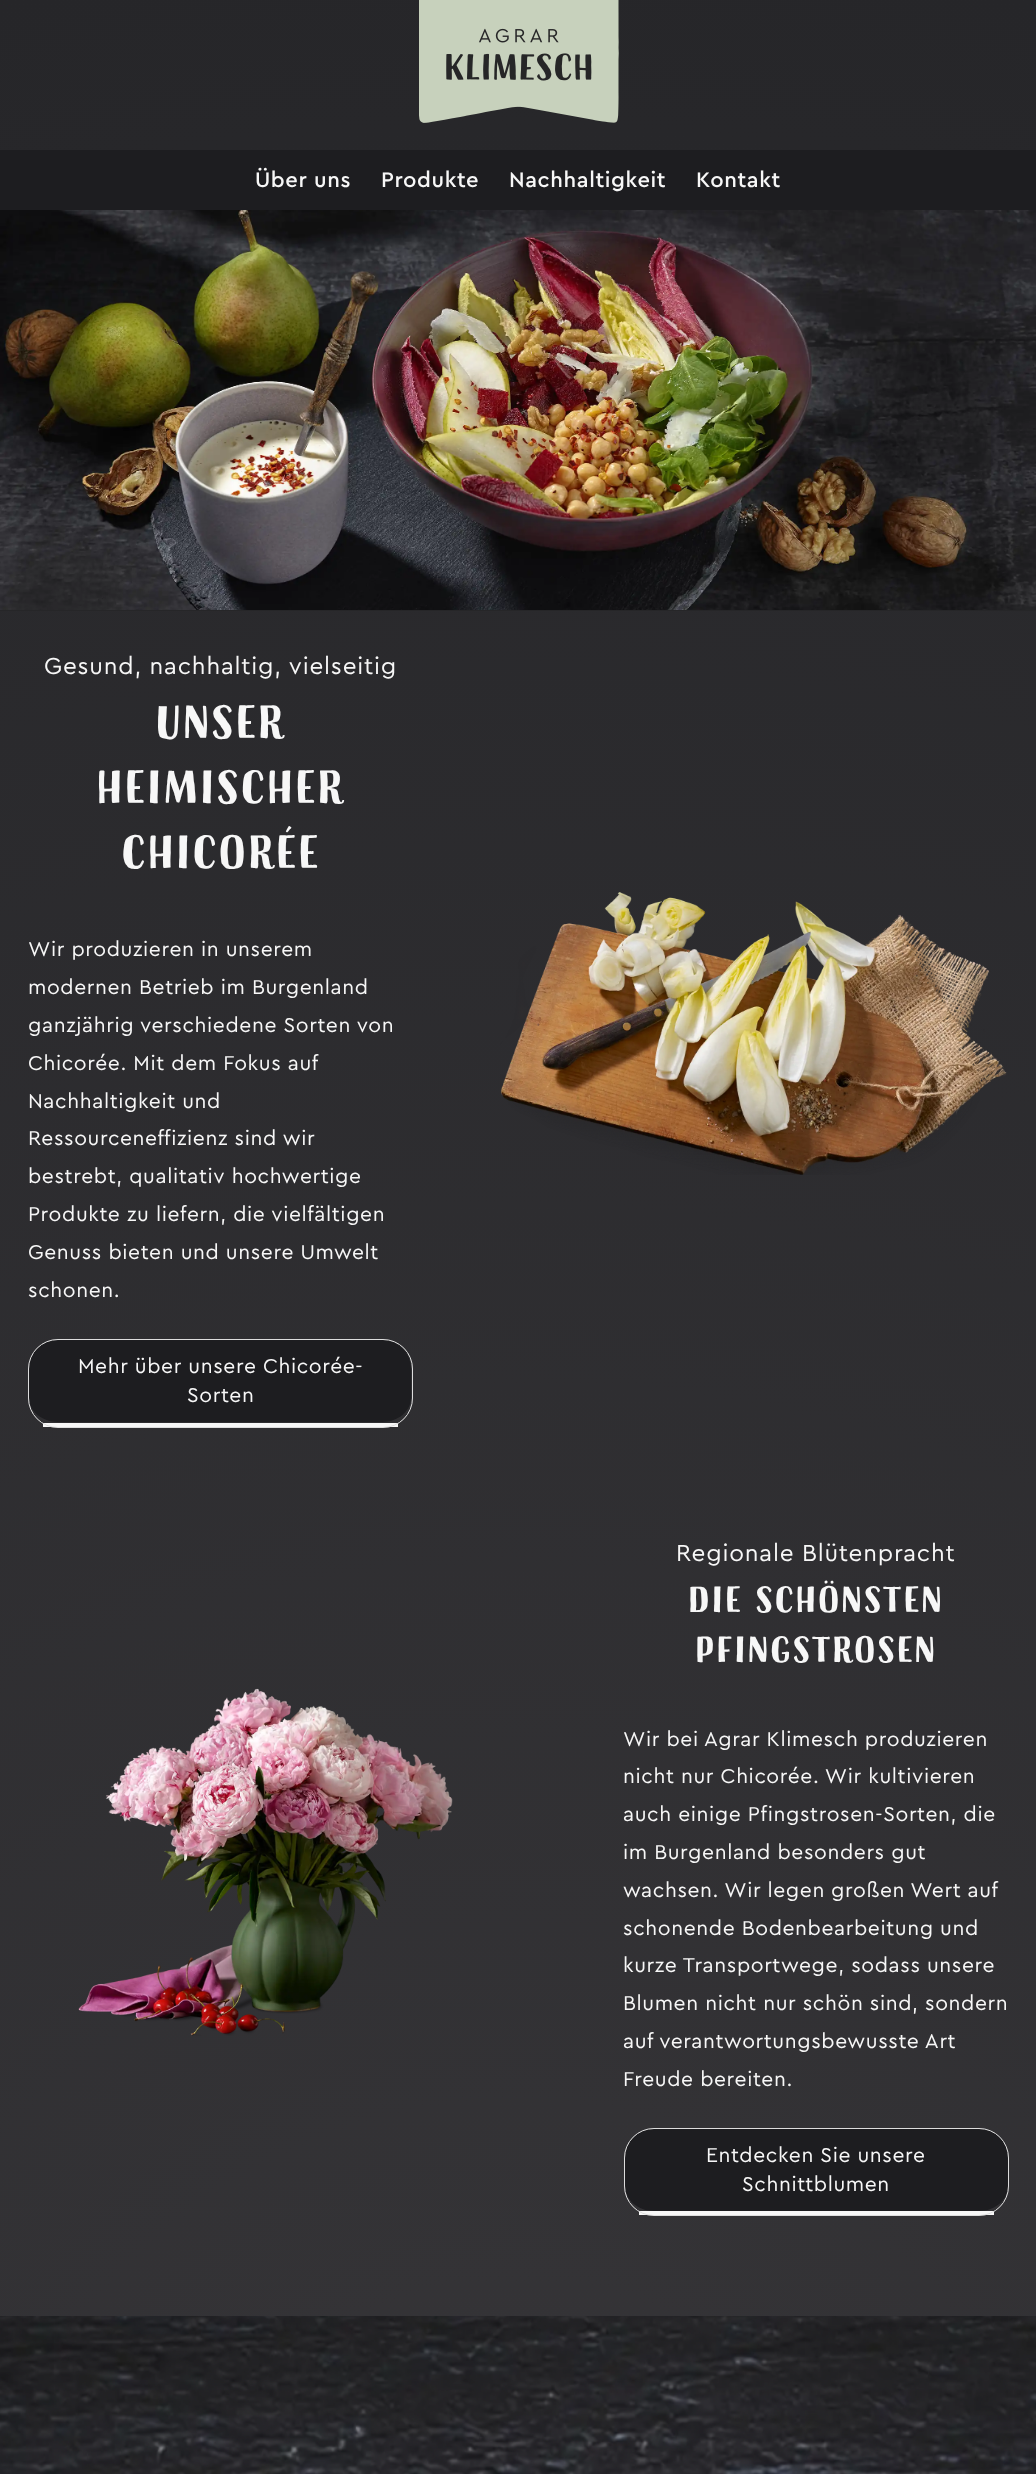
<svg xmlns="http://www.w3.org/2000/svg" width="1036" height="2474">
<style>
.a{font:500 22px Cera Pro;letter-spacing:0.6px;fill:#f7f7f7}
.b{font:24.25px Cera Pro;letter-spacing:0.8px;fill:#f7f7f7}
.c{font:46.25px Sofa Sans;letter-spacing:1.6px;fill:#f7f7f7}
.d{font:21px Cera Pro;letter-spacing:0.6px;fill:#f7f7f7}
.e{font:36.25px Sofa Sans;letter-spacing:1.6px;fill:#f7f7f7}
</style>
<defs>
<radialGradient id="g1" gradientUnits="userSpaceOnUse" cx="518" cy="2641" r="2691"><stop offset="0" stop-color="#363538"/><stop offset="1" stop-color="#262629"/></radialGradient>
</defs>
<rect width="100%" height="100%" fill="#fff"/>
<path fill="url(#g1)" d="M0 0h1036v2316H0z"/>
<image href="1.png" x="419" y="0" width="200" height="123"/>
<path fill="#1d1d20" d="M0 150h1036v60H0z"/>
<path fill="#262628" d="M0 610h1036v1H0z"/>
<image href="2.png" x="0" y="210" width="1036" height="400"/>
<path fill="#1d1d20" d="M58 1340h324c16 0 29 13 29 29v29c0 13-13 24-29 24h-324c-16 0-29-11-29-24v-29c0-16 13-29 29-29z"/>
<rect fill="none" stroke="#f7f7f7" x="28.5" y="1339.5" width="384" height="88" rx="29.5"/>
<path fill="#f7f7f7" d="M43 1423h355v4H43z"/>
<rect fill="none" stroke="#0000001a" x="28.5" y="1339.5" width="384" height="88" rx="29.5"/>
<image href="3.png" x="500" y="892" width="507" height="283"/>
<image href="4.png" x="78" y="1688" width="375" height="348"/>
<path fill="#1d1d20" d="M654 2129h325c16 0 29 13 29 29v28c0 14-13 25-29 25h-325c-16 0-29-11-29-25v-28c0-16 13-29 29-29z"/>
<rect fill="none" stroke="#f7f7f7" x="624.5" y="2128.5" width="384" height="87" rx="29.5"/>
<path fill="#f7f7f7" d="M639 2211h355v4H639z"/>
<rect fill="none" stroke="#0000001a" x="624.5" y="2128.5" width="384" height="87" rx="29.5"/>
<image href="5.png" x="0" y="2316" width="1036" height="158"/>
<text class="a" x="255" y="187">Über uns</text>
<text class="a" x="381" y="187">Produkte</text>
<text class="a" x="509" y="187">Nachhaltigkeit</text>
<text class="a" x="696" y="187">Kontakt</text>
<text class="b" x="44" y="674">Gesund, nachhaltig, vielseitig</text>
<text class="c" x="155" y="738">Unser</text>
<text class="c" x="96" y="803">heimischer</text>
<text class="c" x="121" y="868">Chicorée</text>
<text class="d" x="28" y="956">Wir produzieren in unserem</text>
<text class="d" x="28" y="994">modernen Betrieb im Burgenland</text>
<text class="d" x="28" y="1032">ganzjährig verschiedene Sorten von</text>
<text class="d" x="28" y="1070">Chicorée. Mit dem Fokus auf</text>
<text class="d" x="28" y="1108">Nachhaltigkeit und</text>
<text class="d" x="28" y="1145">Ressourceneffizienz sind wir</text>
<text class="d" x="28" y="1183">bestrebt, qualitativ hochwertige</text>
<text class="d" x="28" y="1221">Produkte zu liefern, die vielfältigen</text>
<text class="d" x="28" y="1259">Genuss bieten und unsere Umwelt</text>
<text class="d" x="28" y="1297">schonen.</text>
<text class="d" x="78" y="1373">Mehr über unsere Chicorée-</text>
<text class="d" x="187" y="1402">Sorten</text>
<text class="b" x="676" y="1561">Regionale Blütenpracht</text>
<text class="e" x="688" y="1612">Die schönsten</text>
<text class="e" x="695" y="1662">Pfingstrosen</text>
<text class="d" x="623" y="1746">Wir bei Agrar Klimesch produzieren</text>
<text class="d" x="623" y="1783">nicht nur Chicorée. Wir kultivieren</text>
<text class="d" x="623" y="1821">auch einige Pfingstrosen-Sorten, die</text>
<text class="d" x="623" y="1859">im Burgenland besonders gut</text>
<text class="d" x="623" y="1897" word-spacing="-0.25">wachsen. Wir legen großen Wert auf</text>
<text class="d" x="623" y="1935">schonende Bodenbearbeitung und</text>
<text class="d" x="623" y="1972">kurze Transportwege, sodass unsere</text>
<text class="d" x="623" y="2010">Blumen nicht nur schön sind, sondern</text>
<text class="d" x="623" y="2048">auf verantwortungsbewusste Art</text>
<text class="d" x="623" y="2086">Freude bereiten.</text>
<text class="d" x="706" y="2162">Entdecken Sie unsere</text>
<text class="d" x="742" y="2191">Schnittblumen</text>
</svg>
